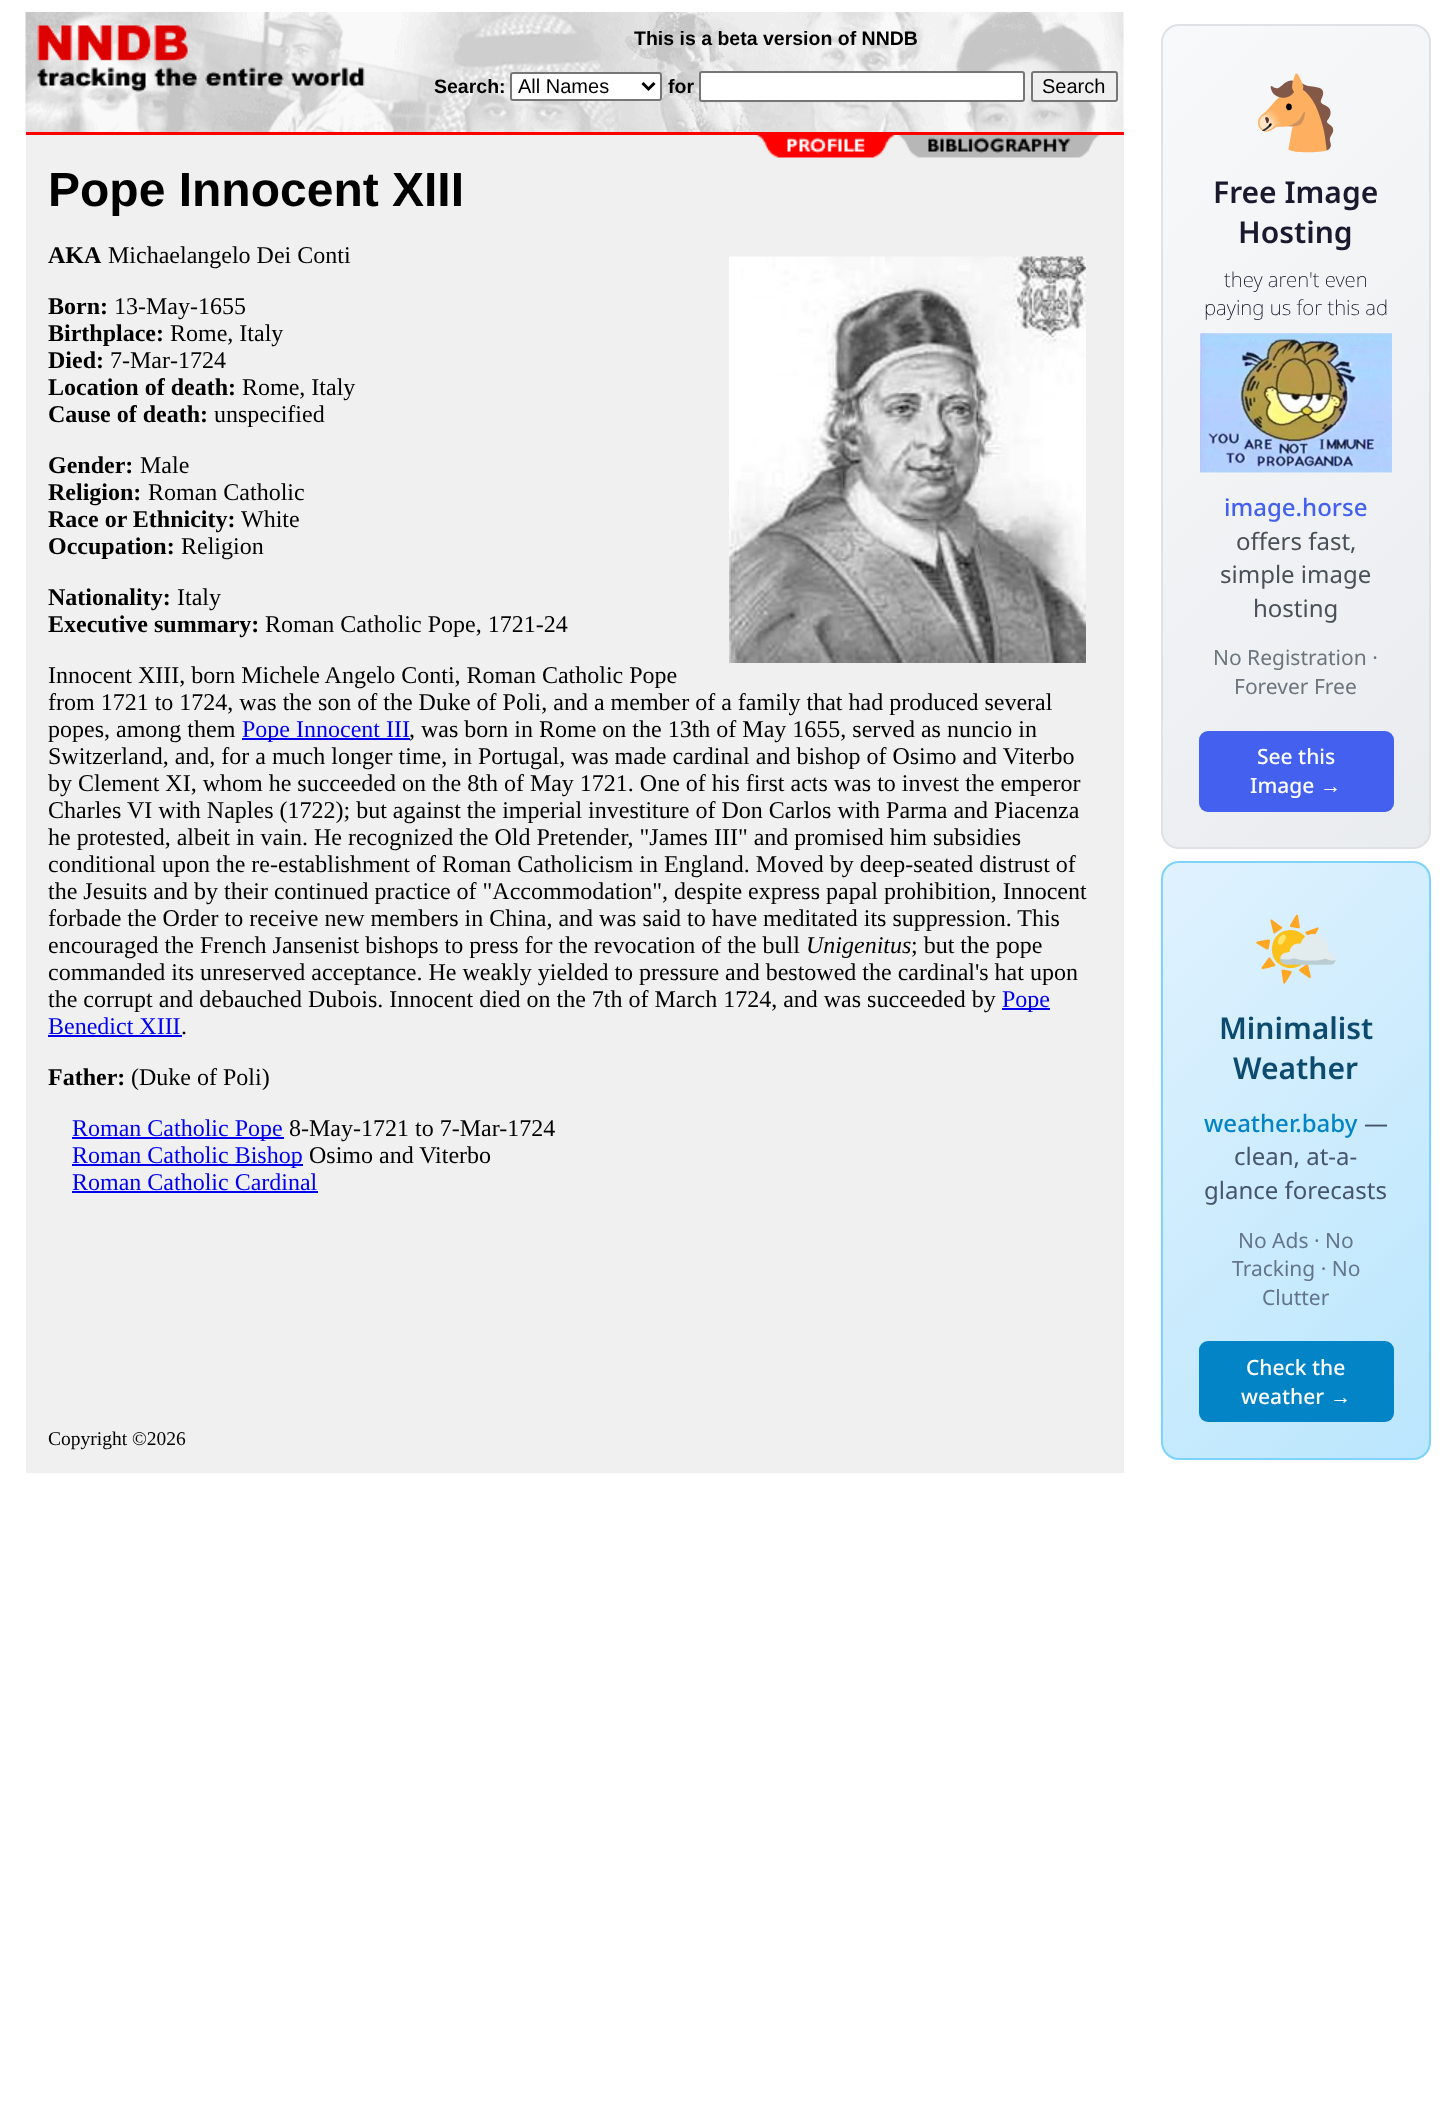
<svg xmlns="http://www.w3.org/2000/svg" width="1456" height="2126">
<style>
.a{font:bold 19.5px Liberation Sans;fill:#000}
.b{font:20px Liberation Sans;fill:#000}
.c{font:bold 48px Liberation Sans;fill:#000}
.d{font:bold 24px Liberation Serif;fill:#000}
.e{font:24px Liberation Serif;fill:#000}
.f{font:24px Liberation Serif;fill:#00e}
.g{font:italic 24px Liberation Serif;fill:#000}
.h{font:19.5px Liberation Serif;fill:#000}
.i{font:72px Noto Color Emoji;fill:#00e}
.j{font:600 30px Noto Sans;fill:#1a1a2e}
.k{font:200 20.5px Noto Sans;fill:#0a0a1e}
.l{font:500 24px Noto Sans;fill:#4361ee}
.m{font:24px Noto Sans;fill:#495057}
.n{font:21px Noto Sans;fill:#6c757d}
.o{font:500 21px Noto Sans;fill:#fff}
.p{font:21px Liberation Sans;fill:#fff}
.q{font:600 30px Noto Sans;fill:#0c4a6e}
.r{font:500 24px Noto Sans;fill:#0284c7}
.s{font:24px Noto Sans;fill:#475569}
.t{font:21px Noto Sans;fill:#64748b}
</style>
<defs>
<clipPath id="clip1"><rect x="1161" y="24" width="270" height="825" rx="18"/></clipPath>
<linearGradient id="g1" gradientUnits="userSpaceOnUse" x1="1024" y1="164" x2="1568" y2="709"><stop offset="0" stop-color="#f8f9fa"/><stop offset="1" stop-color="#e9ecef"/></linearGradient>
<clipPath id="clip2"><rect x="1161" y="861" width="270" height="599" rx="18"/></clipPath>
<linearGradient id="g2" gradientUnits="userSpaceOnUse" x1="1080" y1="945" x2="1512" y2="1376"><stop offset="0" stop-color="#e0f2fe"/><stop offset="1" stop-color="#bae6fd"/></linearGradient>
</defs>
<rect width="100%" height="100%" fill="#fff"/>
<image href="1.png" x="25" y="12" width="1099" height="120"/>
<image href="2.png" x="37" y="25" width="328" height="67"/>
<rect fill="#fff" stroke="#767676" stroke-width="2" x="511" y="73" width="150" height="27" rx="2"/>
<path fill="none" stroke="#000" stroke-width="3" d="M642.5 83l6 6l6-6"/>
<rect fill="#fff" stroke="#767676" stroke-width="2" x="700" y="72" width="324" height="29" rx="2"/>
<rect fill="#efefef" stroke="#767676" stroke-width="2" x="1032" y="72" width="85" height="29" rx="2"/>
<path fill="#f00" d="M26 132h1098v3H26z"/>
<path fill="#f0f0f0" d="M26 135h1098v1338H26z"/>
<image href="3.png" x="757" y="135" width="343" height="23"/>
<image href="4.png" x="729" y="256" width="357" height="407"/>
<path fill="#00e" d="M242 738h168v2H242z"/>
<path fill="#00e" d="M1002 1008h48v2H1002z"/>
<path fill="#00e" d="M48 1035h134v2H48z"/>
<path fill="#00e" d="M72 1137h212v2H72z"/>
<path fill="#00e" d="M72 1164h231v2H72z"/>
<path fill="#00e" d="M72 1191h246v2H72z"/>
<g clip-path="url(#clip1)">
<path fill="url(#g1)" d="M1163 26h267v822H1163z"/>
</g>
<rect fill="none" stroke="#dee2e6" stroke-width="2" x="1162" y="25" width="268" height="823" rx="17"/>
<image href="5.png" x="1200" y="333" width="192" height="140"/>
<rect fill="#4361ee" x="1199" y="731" width="195" height="81" rx="9"/>
<g clip-path="url(#clip2)">
<path fill="url(#g2)" d="M1163 863h267v595H1163z"/>
</g>
<rect fill="none" stroke="#7dd3fc" stroke-width="2" x="1162" y="862" width="268" height="597" rx="17"/>
<rect fill="#0284c7" x="1199" y="1341" width="195" height="81" rx="9"/>
<text class="a" x="634" y="45">This is a beta version of NNDB</text>
<text class="a" x="434" y="93">Search:</text>
<text class="b" x="518" y="93">All Names</text>
<text class="a" x="668" y="93">for</text>
<text class="b" x="1042" y="93">Search</text>
<text class="c" x="48" y="206">Pope Innocent XIII</text>
<text class="d" x="48" y="263">AKA</text>
<text class="e" x="108" y="263">Michaelangelo Dei Conti</text>
<text class="d" x="48" y="314">Born:</text>
<text class="e" x="114" y="314">13-May-1655</text>
<text class="d" x="48" y="341">Birthplace:</text>
<text class="e" x="170" y="341">Rome, Italy</text>
<text class="d" x="48" y="368">Died:</text>
<text class="e" x="110" y="368">7-Mar</text>
<text class="e" x="170" y="368">-1724</text>
<text class="d" x="48" y="395">Location of death:</text>
<text class="e" x="242" y="395">Rome, Italy</text>
<text class="d" x="48" y="422">Cause of death:</text>
<text class="e" x="214" y="422">unspecified</text>
<text class="d" x="48" y="473">Gender:</text>
<text class="e" x="140" y="473">Male</text>
<text class="d" x="48" y="500">Religion:</text>
<text class="e" x="148" y="500">Roman Catholic</text>
<text class="d" x="48" y="527">Race or Ethnicity:</text>
<text class="e" x="241" y="527">White</text>
<text class="d" x="48" y="554">Occupation:</text>
<text class="e" x="181" y="554">Religion</text>
<text class="d" x="48" y="605">Nationality:</text>
<text class="e" x="177" y="605">Italy</text>
<text class="d" x="48" y="632">Executive summary:</text>
<text class="e" x="265" y="632">Roman Catholic Pope, 1721-24</text>
<text class="e" x="48" y="683">Innocent XIII, born Michele Angelo Conti, Roman Catholic Pope</text>
<text class="e" x="48" y="710">from 1721 to 1724, was the son of the Duke of Poli, and a member of a family that had produced several</text>
<text class="e" x="48" y="737">popes, among them</text>
<text class="f" x="242" y="737">Pope Innocent III</text>
<text class="e" x="409" y="737">, was born in Rome on the 13th of May 1655, served as nuncio in</text>
<text class="e" x="48" y="764">Switzerland, and, for a much longer time, in Portugal, was made cardinal and bishop of Osimo and Viterbo</text>
<text class="e" x="48" y="791">by Clement XI, whom he succeeded on the 8th of May 1721. One of his first acts was to invest the emperor</text>
<text class="e" x="48" y="818">Charles VI with Naples (1722); but against the imperial investiture of Don Carlos with Parma and Piacenza</text>
<text class="e" x="48" y="845">he protested, albeit in vain. He recognized the Old Pretender, "James III" and promised him subsidies</text>
<text class="e" x="48" y="872">conditional upon the re-establishment of Roman Catholicism in England. Moved by deep-seated distrust of</text>
<text class="e" x="48" y="899">the Jesuits and by their continued practice of "Accommodation", despite express papal prohibition, Innocent</text>
<text class="e" x="48" y="926">forbade the Order to receive new members in China, and was said to have meditated its suppression. This</text>
<text class="e" x="48" y="953">encouraged the French Jansenist bishops to press for the revocation of the bull</text>
<text class="g" x="806" y="953">Unigenitus</text>
<text class="e" x="911" y="953">; but the pope</text>
<text class="e" x="48" y="980">commanded its unreserved acceptance. He weakly yielded to pressure and bestowed the cardinal's hat upon</text>
<text class="e" x="48" y="1007">the corrupt and debauched Dubois. Innocent died on the 7th of March 1724, and was succeeded by</text>
<text class="f" x="1002" y="1007">Pope</text>
<text class="f" x="48" y="1034">Benedict XIII</text>
<text class="e" x="181" y="1034">.</text>
<text class="d" x="48" y="1085">Father:</text>
<text class="e" x="131" y="1085">(Duke of Poli)</text>
<text class="f" x="72" y="1136">Roman Catholic Pope</text>
<text class="e" x="289" y="1136">8-May-1721 to 7-Mar-1724</text>
<text class="f" x="72" y="1163">Roman Catholic Bishop</text>
<text class="e" x="309" y="1163">Osimo and Viterbo</text>
<text class="f" x="72" y="1190">Roman Catholic Cardinal</text>
<text class="h" x="48" y="1445">Copyright ©2026</text>
<text class="i" x="1251" y="138">🐴</text>
<text class="j" x="1213" y="203">Free Image</text>
<text class="j" x="1238" y="243">Hosting</text>
<text class="k" x="1224" y="287">they aren't even</text>
<text class="k" x="1204" y="315">paying us for this ad</text>
<text class="l" x="1224" y="516">image.horse</text>
<text class="m" x="1236" y="550">offers fast,</text>
<text class="m" x="1220" y="583">simple image</text>
<text class="m" x="1253" y="617">hosting</text>
<text class="n" x="1213" y="665">No Registration ·</text>
<text class="n" x="1234" y="694">Forever Free</text>
<text class="o" x="1257" y="764">See this</text>
<text class="o" x="1250" y="793">Image</text>
<text class="p" x="1320" y="793">→</text>
<text class="i" x="1251" y="974">🌤️</text>
<text class="q" x="1219" y="1039">Minimalist</text>
<text class="q" x="1233" y="1079">Weather</text>
<text class="r" x="1204" y="1132">weather.baby</text>
<text class="s" x="1364" y="1132">—</text>
<text class="s" x="1234" y="1165">clean, at-a-</text>
<text class="s" x="1204" y="1199">glance forecasts</text>
<text class="t" x="1238" y="1248">No Ads · No</text>
<text class="t" x="1232" y="1276">Tracking · No</text>
<text class="t" x="1262" y="1305">Clutter</text>
<text class="o" x="1246" y="1375">Check the</text>
<text class="o" x="1241" y="1404">weather</text>
<text class="p" x="1330" y="1404">→</text>
</svg>
